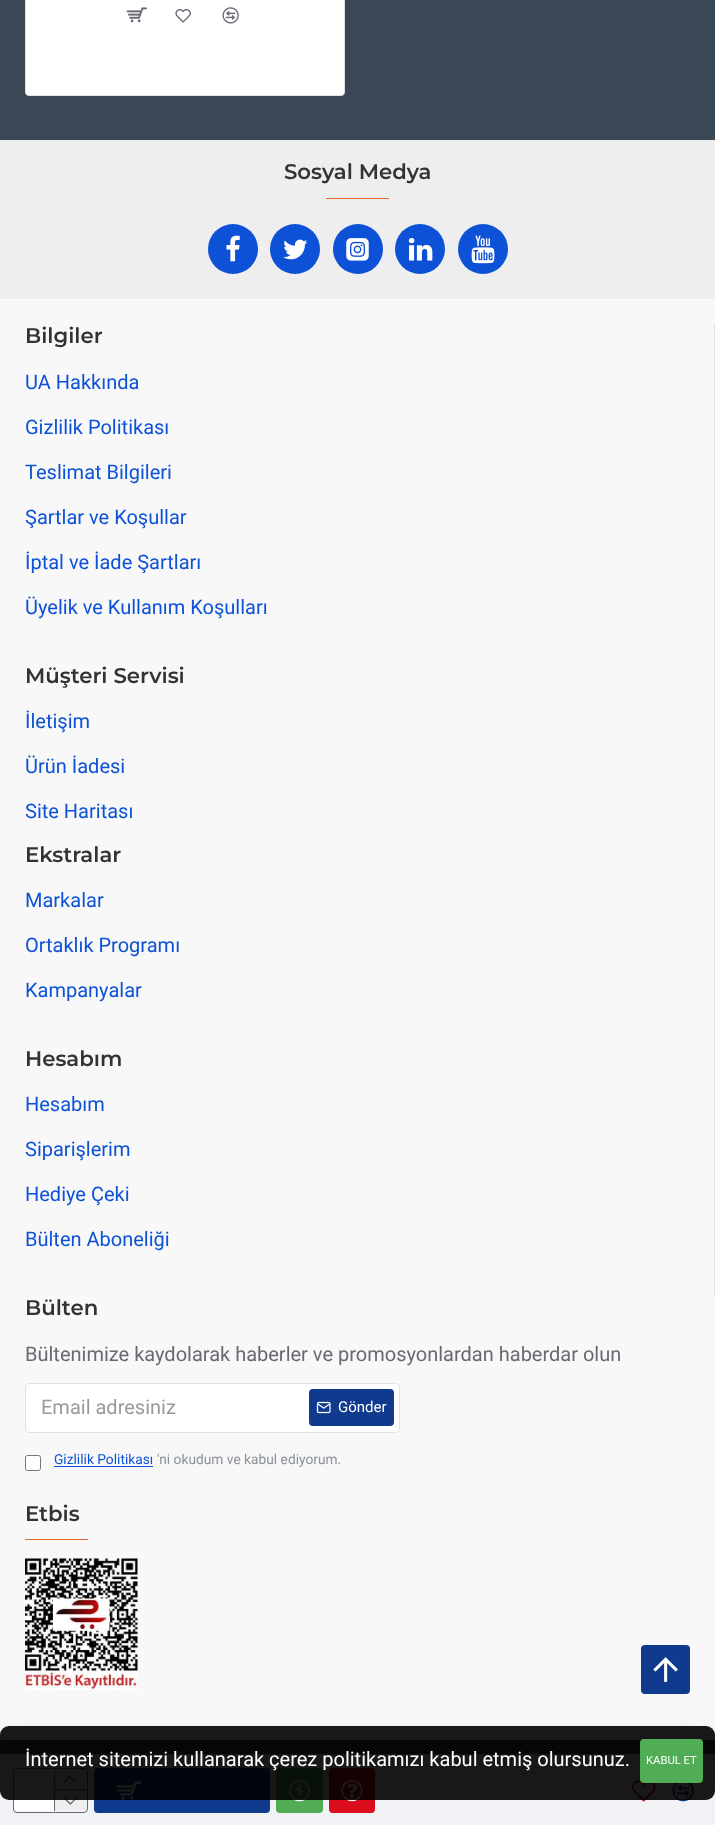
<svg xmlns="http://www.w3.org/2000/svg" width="715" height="1825">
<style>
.a{font:600 21.25px Montserrat;fill:#333}
.b{font:20px Roboto;fill:#0d52d6}
.c{font:20px Roboto;fill:#696973}
.d{font:20px Roboto;fill:#999}
.e{font:15px Roboto;fill:#fff}
.f{font:13.75px Roboto;fill:#0d52d6}
.g{font:13.75px Roboto;fill:#8b9198}
.h{font:20px Roboto;fill:#fff}
.i{font:11.25px Roboto;fill:#fff}
</style>
<rect width="100%" height="100%" fill="#f8f8f8"/>
<path fill="#3a4754" d="M0 0h715v140H0z"/>
<rect fill="#fff" stroke="#e2e2e2" x="25.5" y="-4.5" width="319" height="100" rx="3.5"/>
<image href="1.png" x="126" y="7" width="21" height="16"/>
<image href="2.png" x="175" y="9" width="16" height="14"/>
<image href="3.png" x="222" y="7" width="17" height="17"/>
<path fill="#eee" d="M0 140h715v159H0z"/>
<path fill="#e96631" d="M326 198h63v1H326z"/>
<circle fill="#0d52d6" cx="233" cy="249" r="25"/>
<image href="4.png" x="226" y="235" width="14" height="27"/>
<circle fill="#0d52d6" cx="295" cy="249" r="25"/>
<image href="5.png" x="283" y="239" width="25" height="21"/>
<circle fill="#0d52d6" cx="358" cy="249" r="25"/>
<image href="6.png" x="346" y="238" width="23" height="23"/>
<circle fill="#0d52d6" cx="420" cy="249" r="25"/>
<image href="7.png" x="408" y="238" width="25" height="23"/>
<circle fill="#0d52d6" cx="483" cy="249" r="25"/>
<image href="8.png" x="471" y="235" width="24" height="29"/>
<path fill="#e2e2e2" d="M714 324h1v971H714z"/>
<rect fill="#fff" stroke="#e2e2e2" x="25.5" y="1383.5" width="374" height="49" rx="3.5"/>
<rect fill="#0f3a8d" x="309" y="1389" width="85" height="37" rx="4"/>
<image href="9.png" x="316" y="1401" width="15" height="13"/>
<rect fill="#fff" stroke="#767676" x="25.5" y="1455.5" width="15" height="15" rx="2"/>
<path fill="#0d52d6" d="M54 1466h99v1H54z"/>
<path fill="#e96631" d="M25 1539h63v1H25z"/>
<image href="10.png" x="25" y="1558" width="113" height="132"/>
<path fill="#3a4754" d="M0 1740h715v14H0z"/>
<path fill="#00000026" filter="blur(19px)" d="M6 1748h703v58H6z"/>
<path fill="#f0f2f5" d="M0 1755h715v70H0z"/>
<path fill="#e2e2e2" d="M0 1754h715v1H0z"/>
<rect fill="none" stroke="#696973" x="13.5" y="1768.5" width="74" height="44" rx="3.5"/>
<rect fill="#fff" x="14" y="1769" width="72" height="42" rx="4"/>
<path fill="#696973" d="M54 1769h1v42H54z"/>
<path fill="#eee" d="M55 1769h31v20H55z"/>
<path fill="#696973" d="M55 1789h31v1H55z"/>
<image href="11.png" x="63" y="1776" width="13" height="7"/>
<path fill="#eee" d="M55 1790h31v21H55z"/>
<image href="12.png" x="64" y="1797" width="13" height="8"/>
<rect fill="#0f3a8d" x="94" y="1768" width="176" height="45" rx="4"/>
<image href="13.png" x="116" y="1781" width="26" height="19"/>
<rect fill="#50ad55" x="276" y="1768" width="47" height="45" rx="4"/>
<image href="14.png" x="288" y="1780" width="22" height="22"/>
<rect fill="#dd0e1c" x="329" y="1768" width="46" height="45" rx="4"/>
<image href="15.png" x="341" y="1779" width="22" height="23"/>
<image href="16.png" x="631" y="1780" width="25" height="22"/>
<image href="17.png" x="672" y="1783" width="22" height="19"/>
<rect fill="#0f3a8d" x="641" y="1645" width="49" height="49" rx="4"/>
<image href="18.png" x="653" y="1657" width="25" height="25"/>
<rect fill="#000000e6" y="1726" width="715" height="74" rx="9"/>
<rect fill="#50ad55" x="640" y="1739" width="63" height="44" rx="4"/>
<text class="a" x="284" y="179">Sosyal Medya</text>
<text class="a" x="25" y="343">Bilgiler</text>
<text class="b" x="25" y="389">UA Hakkında</text>
<text class="b" x="25" y="434">Gizlilik Politikası</text>
<text class="b" x="25" y="479">Teslimat Bilgileri</text>
<text class="b" x="25" y="524">Şartlar ve Koşullar</text>
<text class="b" x="25" y="569">İptal ve İade Şartları</text>
<text class="b" x="25" y="614">Üyelik ve Kullanım Koşulları</text>
<text class="a" x="25" y="683">Müşteri Servisi</text>
<text class="b" x="25" y="728">İletişim</text>
<text class="b" x="25" y="773">Ürün İadesi</text>
<text class="b" x="25" y="818">Site Haritası</text>
<text class="a" x="25" y="862">Ekstralar</text>
<text class="b" x="25" y="907">Markalar</text>
<text class="b" x="25" y="952">Ortaklık Programı</text>
<text class="b" x="25" y="997">Kampanyalar</text>
<text class="a" x="25" y="1066">Hesabım</text>
<text class="b" x="25" y="1111">Hesabım</text>
<text class="b" x="25" y="1156">Siparişlerim</text>
<text class="b" x="25" y="1201">Hediye Çeki</text>
<text class="b" x="25" y="1246">Bülten Aboneliği</text>
<text class="a" x="25" y="1315">Bülten</text>
<text class="c" x="25" y="1361">Bültenimize kaydolarak haberler ve promosyonlardan haberdar olun</text>
<text class="d" x="41" y="1414">Email adresiniz</text>
<text class="e" x="338" y="1412">Gönder</text>
<text class="f" x="54" y="1464">Gizlilik Politikası</text>
<text class="g" x="157" y="1464">'ni okudum ve kabul ediyorum.</text>
<text class="a" x="25" y="1521">Etbis</text>
<text class="h" x="25" y="1766">İnternet sitemizi kullanarak çerez politikamızı kabul etmiş olursunuz.</text>
<text class="i" x="646" y="1764">KABUL ET</text>
</svg>
